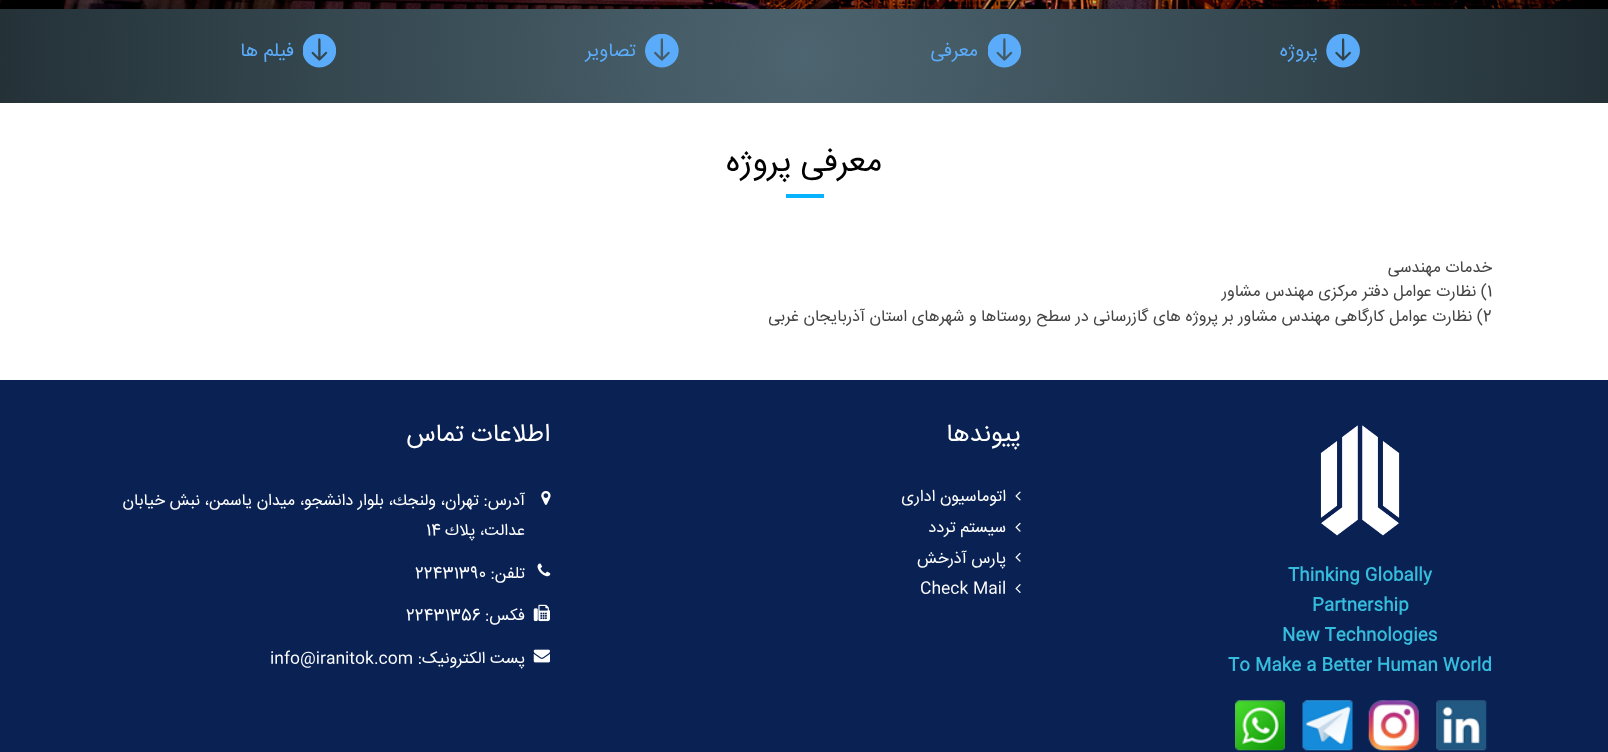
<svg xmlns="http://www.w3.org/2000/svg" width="1608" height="752">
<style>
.a{font:19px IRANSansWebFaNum;direction:rtl;fill:#5aacfa}
.b{font:32.5px IRANSansWebFaNum;direction:rtl;fill:#000}
.c{font:16.25px IRANSansWebFaNum;direction:rtl;fill:#444}
.d{font:16.25px IRANSansWebFaNum;fill:#444}
.e{font:25px IRANSansWebFaNum;direction:rtl;fill:#fff}
.f{font:16.25px IRANSansWebFaNum;direction:rtl;fill:#fff}
.g{font:16.25px IRANSansWebFaNum;fill:#fff}
.h{font:bold 17.5px IRANSansWebFaNum;fill:#36bddd}
</style>
<defs>
<radialGradient id="g1" gradientUnits="userSpaceOnUse" cx="804" cy="58" r="806"><stop offset="0" stop-color="#4d6570"/><stop offset="1" stop-color="#243238"/></radialGradient>
</defs>
<rect width="100%" height="100%" fill="#fff"/>
<image href="1.png" x="0" y="0" width="1608" height="9"/>
<path fill="url(#g1)" d="M0 9h1608v94H0z"/>
<image href="2.png" x="1326" y="34" width="34" height="34"/>
<image href="3.png" x="988" y="34" width="33" height="34"/>
<image href="4.png" x="645" y="34" width="34" height="34"/>
<image href="5.png" x="303" y="34" width="33" height="34"/>
<path fill="#07b2fe" d="M786 194h38v4H786z"/>
<path fill="#092253" d="M0 380h1608v372H0z"/>
<image href="6.png" x="1015" y="491" width="6" height="10"/>
<image href="7.png" x="1015" y="522" width="6" height="10"/>
<image href="7.png" x="1015" y="552" width="6" height="10"/>
<image href="8.png" x="1015" y="584" width="6" height="9"/>
<image href="9.png" x="541" y="491" width="10" height="14"/>
<image href="10.png" x="537" y="563" width="14" height="14"/>
<image href="11.png" x="533" y="604" width="17" height="18"/>
<image href="12.png" x="533" y="649" width="17" height="14"/>
<image href="13.png" x="1320" y="425" width="80" height="111"/>
<image href="14.png" x="1436" y="700" width="51" height="51"/>
<image href="15.png" x="1368" y="700" width="51" height="51"/>
<image href="16.png" x="1302" y="700" width="51" height="51"/>
<image href="17.png" x="1235" y="700" width="50" height="51"/>
<text class="a" x="1318" y="56">پروژه</text>
<text class="a" x="978" y="56">معرفی</text>
<text class="a" x="636" y="56">تصاویر</text>
<text class="a" x="294" y="56">فیلم ها</text>
<text class="b" x="882" y="171">معرفی پروژه</text>
<text class="c" x="1492" y="272">خدمات مهندسی</text>
<text class="d" x="1487" y="296">1</text>
<text class="c" x="1487" y="296">) نظارت عوامل دفتر مرکزی مهندس مشاور</text>
<text class="d" x="1483" y="321">2</text>
<text class="c" x="1483" y="321">) نظارت عوامل کارگاهی مهندس مشاور بر پروژه های گازرسانی در سطح روستاها و شهرهای استان آذربایجان غربی</text>
<text class="e" x="1021" y="441">پیوندها</text>
<text class="f" x="1006" y="501">اتوماسیون اداری</text>
<text class="f" x="1006" y="532">سیستم تردد</text>
<text class="f" x="1006" y="563">پارس آذرخش</text>
<text class="g" x="920" y="593">Check Mail</text>
<text class="e" x="550" y="441">اطلاعات تماس</text>
<text class="f" x="525" y="505">آدرس: تهران،‌ ولنجك، بلوار دانشجو، ميدان ياسمن، نبش خيابان</text>
<text class="f" x="525" y="535">عدالت، پلاك</text>
<text class="g" x="426" y="535">14</text>
<text class="f" x="525" y="578">تلفن:</text>
<text class="g" x="415" y="578">22431390</text>
<text class="f" x="525" y="620">فکس:</text>
<text class="g" x="406" y="620">22431356</text>
<text class="f" x="525" y="663">پست الکترونیک:</text>
<text class="g" x="270" y="663">info@iranitok.com</text>
<text class="h" x="1288" y="580">Thinking Globally</text>
<text class="h" x="1312" y="610">Partnership</text>
<text class="h" x="1282" y="640">New Technologies</text>
<text class="h" x="1228" y="670">To Make a Better Human World</text>
</svg>
